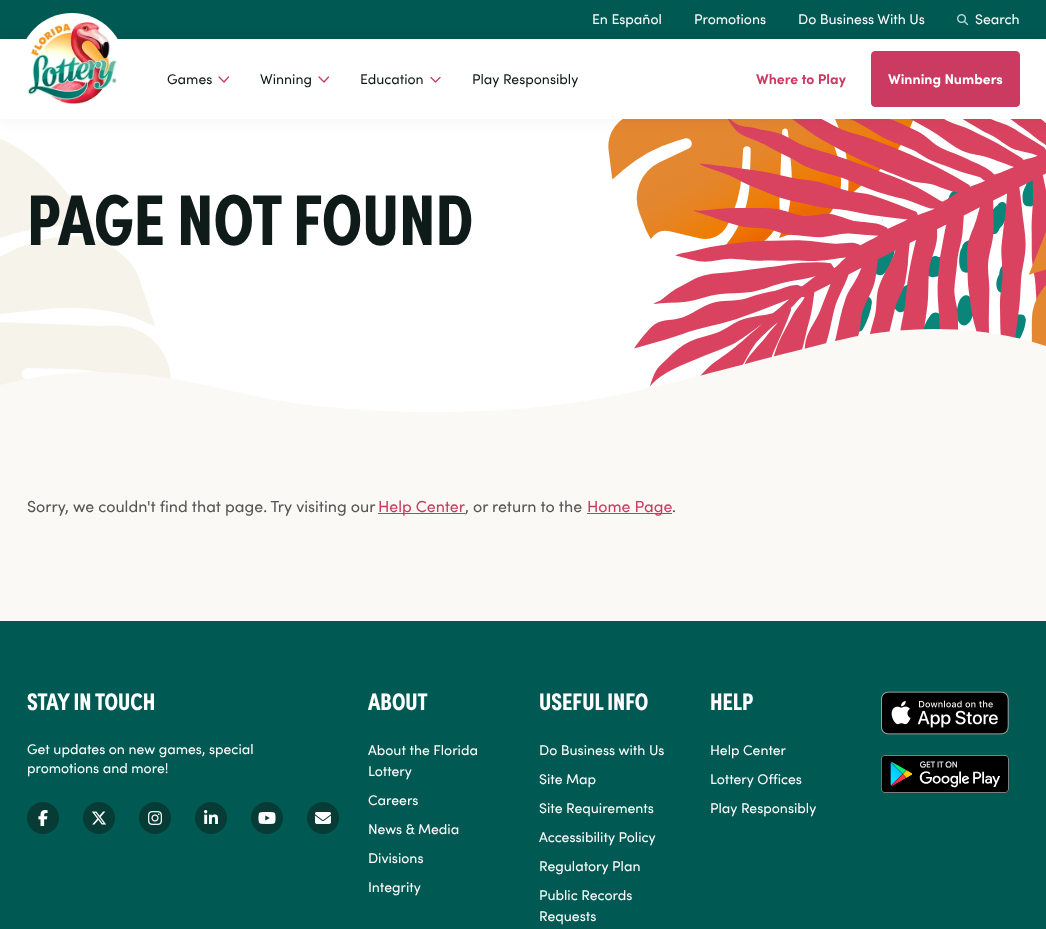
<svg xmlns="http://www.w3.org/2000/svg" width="1046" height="929">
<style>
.a{font:14px Sofia;fill:#fff}
.b{font:14px Sofia;fill:#0e1b19}
.c{font:bold 14px Sofia;fill:#cb3a60}
.d{font:bold 14px Sofia;fill:#fff}
.e{font:bold 72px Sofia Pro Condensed;fill:#0e1b19}
.f{font:16px Sofia;fill:#555}
.g{font:16px Sofia;fill:#cb3a60}
.h{font:bold 24px Sofia Pro Condensed;fill:#fff}
</style>
<defs>
<clipPath id="clip1"><path d="M0 329h1046v124H0z"/></clipPath>
</defs>
<rect width="100%" height="100%" fill="#faf9f5"/>
<path fill="#015953" d="M0 0h1046v39H0z"/>
<path fill="#fff" d="M0 119h1046v293H0z"/>
<image href="3.png" x="0" y="139" width="171" height="246"/>
<image href="4.png" x="608" y="119" width="438" height="268"/>
<path fill="#0000000d" filter="blur(8px)" d="M0 39h1046v80H0z"/>
<image href="1.png" x="957" y="14" width="12" height="12"/>
<path fill="#fff" d="M0 39h1046v80H0z"/>
<image href="2.png" x="26" y="13" width="92" height="92"/>
<path fill="none" stroke="#cb3a60" stroke-width="1.3" stroke-linecap="round" stroke-linejoin="round" d="M228.5 77l-4.5 5l-5-5"/>
<path fill="none" stroke="#cb3a60" stroke-width="1.3" stroke-linecap="round" stroke-linejoin="round" d="M328.5 77l-4.5 5l-5-5"/>
<path fill="none" stroke="#cb3a60" stroke-width="1.3" stroke-linecap="round" stroke-linejoin="round" d="M440 77.5l-4.5 4.5l-4.5-4.5"/>
<rect fill="#cb3a60" stroke="#cb3a60" x="871.5" y="51.5" width="148" height="55" rx="3.5"/>
<g clip-path="url(#clip1)">
<path fill="#faf9f5" d="M1046 346v111h-1046v-72l22-5c56-13 125-10 210 11c70 17 140 21 211 21c70 0 140-8 211-25c26-5 170-45 209-52c61-10 125-8 183 11z"/>
</g>
<path fill="#cb3a60" d="M378 513h87v1H378z"/>
<path fill="#cb3a60" d="M587 513h85v1H587z"/>
<path fill="#015953" d="M0 621h1046v308H0z"/>
<circle fill="#073b36" cx="43" cy="818" r="16"/>
<image href="5.png" x="38" y="810" width="10" height="16"/>
<circle fill="#073b36" cx="99" cy="818" r="16"/>
<image href="6.png" x="92" y="811" width="15" height="14"/>
<circle fill="#073b36" cx="155" cy="818" r="16"/>
<image href="7.png" x="148" y="811" width="14" height="14"/>
<circle fill="#073b36" cx="211" cy="818" r="16"/>
<image href="8.png" x="204" y="810" width="14" height="14"/>
<circle fill="#073b36" cx="267" cy="818" r="16"/>
<image href="9.png" x="258" y="812" width="18" height="12"/>
<circle fill="#073b36" cx="323" cy="818" r="16"/>
<image href="10.png" x="315" y="812" width="16" height="12"/>
<image href="11.png" x="881" y="691" width="128" height="44"/>
<image href="12.png" x="881" y="755" width="128" height="38"/>
<text class="a" x="592" y="24">En Español</text>
<text class="a" x="694" y="24">Promotions</text>
<text class="a" x="798" y="24">Do Business With Us</text>
<text class="a" x="975" y="24">Search</text>
<text class="b" x="167" y="84">Games</text>
<text class="b" x="260" y="84">Winning</text>
<text class="b" x="360" y="84">Education</text>
<text class="b" x="472" y="84">Play Responsibly</text>
<text class="c" x="756" y="84">Where to Play</text>
<text class="d" x="888" y="84">Winning Numbers</text>
<text class="e" x="27" y="245">PAGE NOT FOUND</text>
<text class="f" x="27" y="512">Sorry, we couldn't find that page. Try visiting our</text>
<text class="g" x="378" y="512">Help Center</text>
<text class="f" x="465" y="512">, or return to the</text>
<text class="g" x="587" y="512">Home Page</text>
<text class="f" x="672" y="512">.</text>
<text class="h" x="27" y="710">STAY IN TOUCH</text>
<text class="a" x="27" y="754">Get updates on new games, special</text>
<text class="a" x="27" y="773">promotions and more!</text>
<text class="h" x="368" y="710">ABOUT</text>
<text class="a" x="368" y="755">About the Florida</text>
<text class="a" x="368" y="776">Lottery</text>
<text class="a" x="368" y="805">Careers</text>
<text class="a" x="368" y="834">News &amp; Media</text>
<text class="a" x="368" y="863">Divisions</text>
<text class="a" x="368" y="892">Integrity</text>
<text class="h" x="539" y="710">USEFUL INFO</text>
<text class="a" x="539" y="755">Do Business with Us</text>
<text class="a" x="539" y="784">Site Map</text>
<text class="a" x="539" y="813">Site Requirements</text>
<text class="a" x="539" y="842">Accessibility Policy</text>
<text class="a" x="539" y="871">Regulatory Plan</text>
<text class="a" x="539" y="900">Public Records</text>
<text class="a" x="539" y="921">Requests</text>
<text class="h" x="710" y="710">HELP</text>
<text class="a" x="710" y="755">Help Center</text>
<text class="a" x="710" y="784">Lottery Offices</text>
<text class="a" x="710" y="813">Play Responsibly</text>
</svg>
